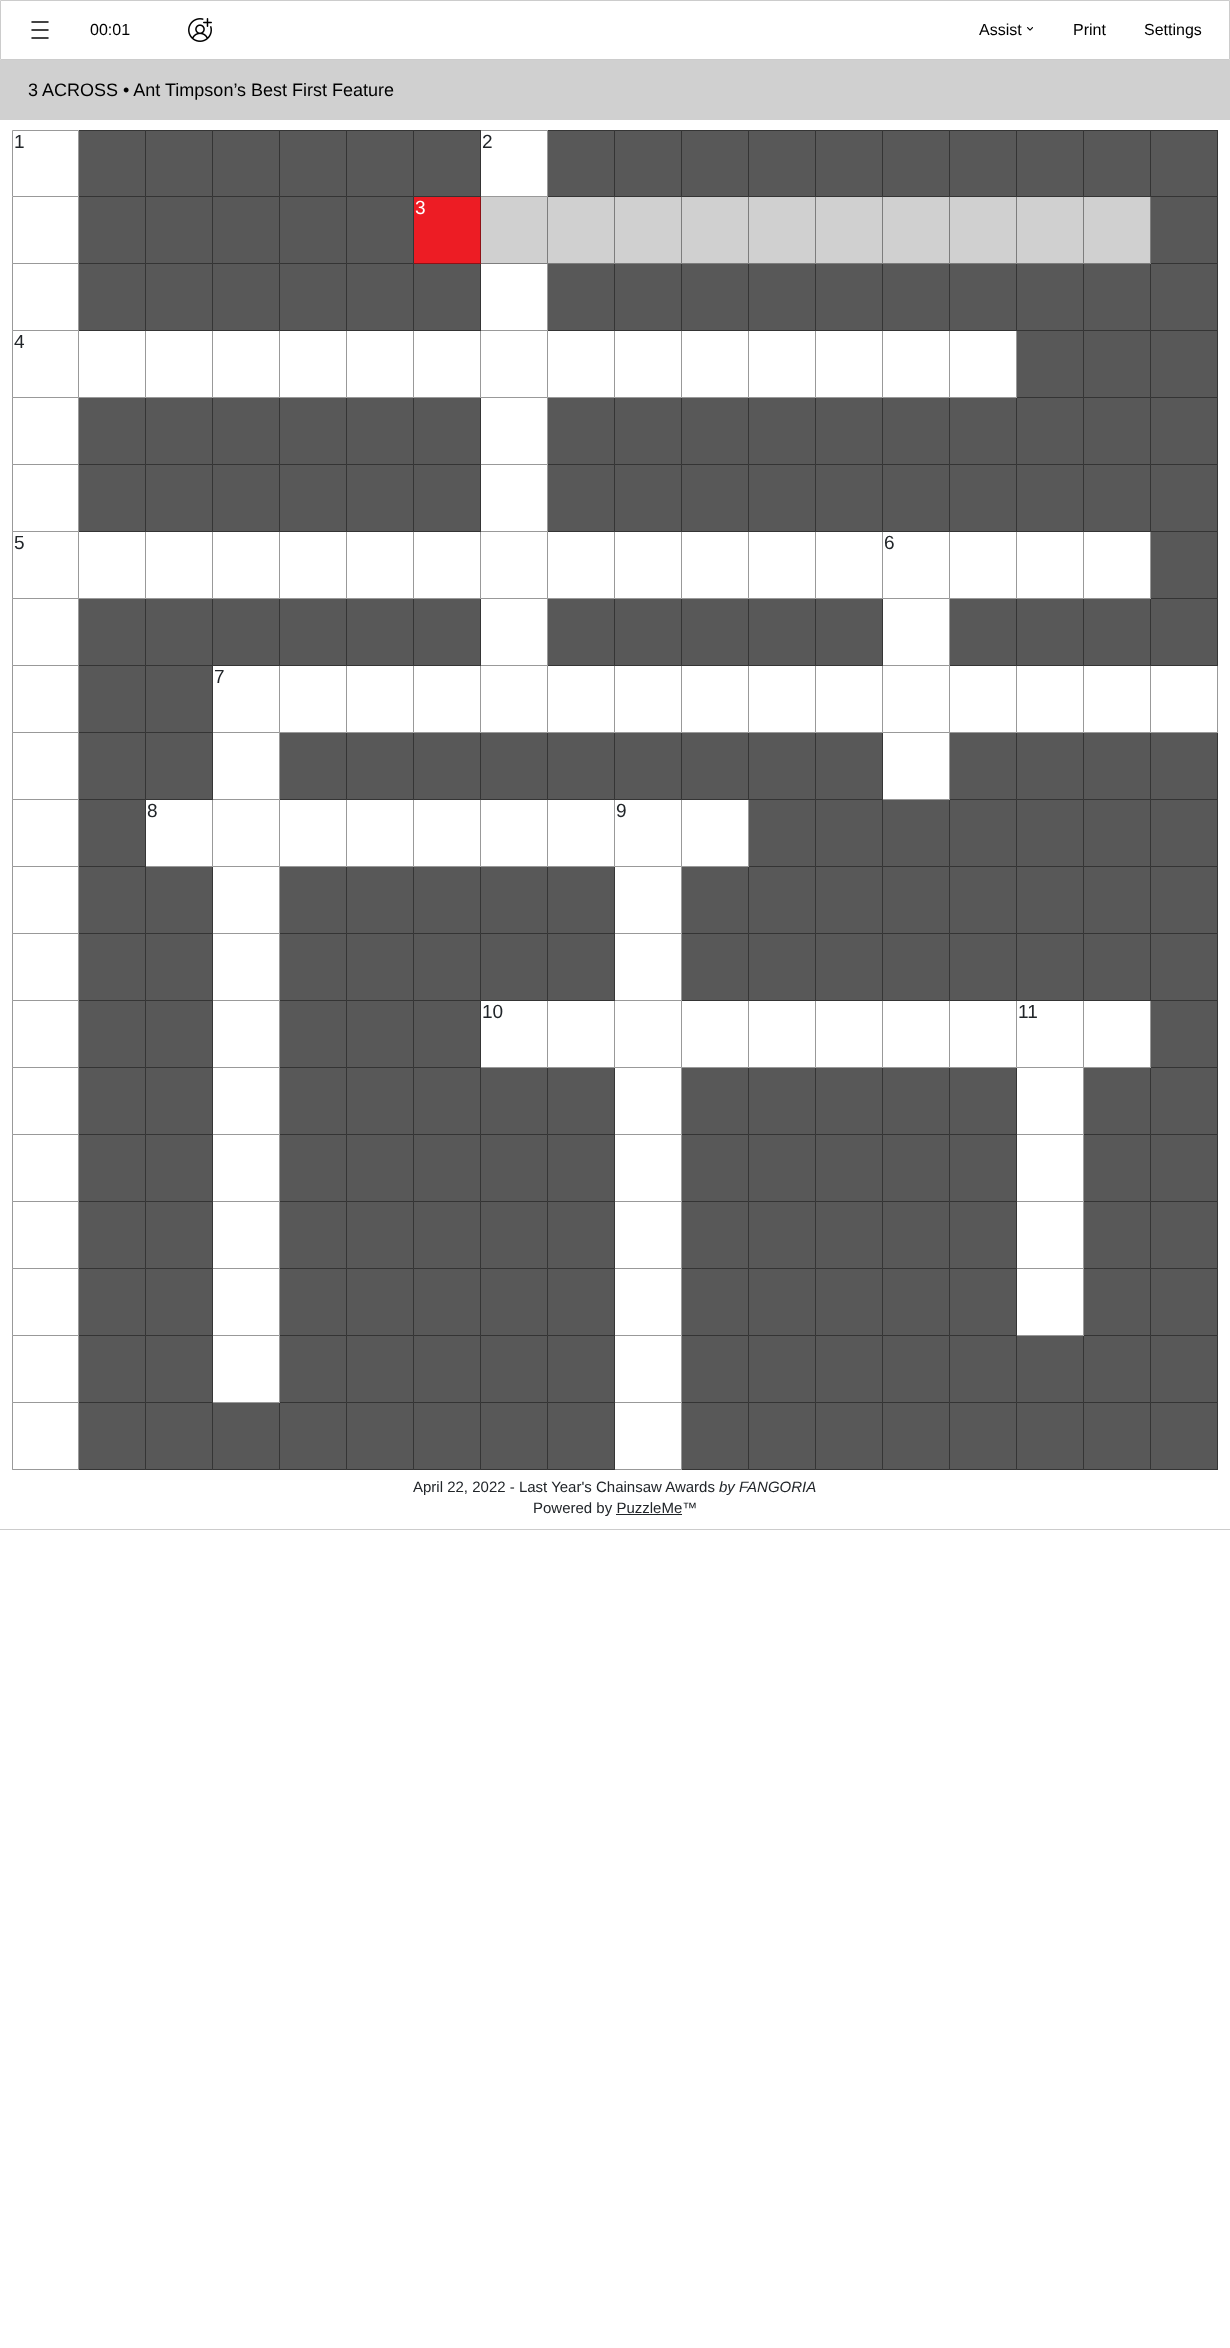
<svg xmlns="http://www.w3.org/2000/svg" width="1230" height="2348">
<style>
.a{font:16px Liberation Sans;fill:#000}
.b{font:18px Liberation Sans;fill:#000}
.c{font:19px Liberation Sans;fill:#212529}
.d{font:19px Liberation Sans;fill:#fff}
.e{font:15px Liberation Sans;fill:#212529}
.f{font:italic 15px Liberation Sans;fill:#212529}
</style>
<rect width="100%" height="100%" fill="#fff"/>
<path fill="none" stroke="#ccc" d="M0.5 0.5h1229v59H0.5z"/>
<image href="1.png" x="31" y="21" width="18" height="18"/>
<image href="2.png" x="188" y="18" width="24" height="24"/>
<image href="3.png" x="1027" y="27" width="6" height="4"/>
<path fill="#d0d0d0" d="M0 60h1230v60H0z"/>
<path fill="#ccc" d="M0 1529h1230v1H0z"/>
<path fill="#585858" d="M79 130h402v67H79z"/>
<path fill="#353535" d="M79 130h67l-1 1h-66z"/>
<path fill="#00000066" d="M146 130v67l-1-1v-65z"/>
<path fill="#00000066" d="M146 197h-67v-1h66z"/>
<path fill="#353535" d="M146 130h67l-1 1h-66z"/>
<path fill="#00000066" d="M213 130v67l-1-1v-65z"/>
<path fill="#00000066" d="M213 197h-67v-1h66z"/>
<path fill="#353535" d="M213 130h67l-1 1h-66z"/>
<path fill="#00000066" d="M280 130v67l-1-1v-65z"/>
<path fill="#00000066" d="M280 197h-67v-1h66z"/>
<path fill="#353535" d="M280 130h67l-1 1h-66z"/>
<path fill="#00000066" d="M347 130v67l-1-1v-65z"/>
<path fill="#00000066" d="M347 197h-67v-1h66z"/>
<path fill="#353535" d="M347 130h67l-1 1h-66z"/>
<path fill="#00000066" d="M414 130v67l-1-1v-65z"/>
<path fill="#00000066" d="M414 197h-67v-1h66z"/>
<path fill="#353535" d="M414 130h67l-1 1h-66z"/>
<path fill="#00000066" d="M481 130v67l-1-1v-65z"/>
<path fill="#00000066" d="M481 197h-67v-1h66z"/>
<path fill="#585858" d="M548 130h670v67H548z"/>
<path fill="#353535" d="M548 130h67l-1 1h-66z"/>
<path fill="#00000066" d="M615 130v67l-1-1v-65z"/>
<path fill="#00000066" d="M615 197h-67v-1h66z"/>
<path fill="none" stroke="#999" d="M12.5 130.5h66v66H12.5z"/>
<path fill="#999" d="M481 130h67l-1 1h-66z"/>
<path fill="#00000066" d="M548 130v67l-1-1v-65z"/>
<path fill="#00000066" d="M548 197h-67v-1h66z"/>
<path fill="#353535" d="M615 130h67l-1 1h-66z"/>
<path fill="#00000066" d="M682 130v67l-1-1v-65z"/>
<path fill="#00000066" d="M682 197h-67v-1h66z"/>
<path fill="#353535" d="M682 130h67l-1 1h-66z"/>
<path fill="#00000066" d="M749 130v67l-1-1v-65z"/>
<path fill="#00000066" d="M749 197h-67v-1h66z"/>
<path fill="#353535" d="M749 130h67l-1 1h-66z"/>
<path fill="#00000066" d="M816 130v67l-1-1v-65z"/>
<path fill="#00000066" d="M816 197h-67v-1h66z"/>
<path fill="#353535" d="M816 130h67l-1 1h-66z"/>
<path fill="#00000066" d="M883 130v67l-1-1v-65z"/>
<path fill="#00000066" d="M883 197h-67v-1h66z"/>
<path fill="#353535" d="M883 130h67l-1 1h-66z"/>
<path fill="#00000066" d="M950 130v67l-1-1v-65z"/>
<path fill="#00000066" d="M950 197h-67v-1h66z"/>
<path fill="#353535" d="M950 130h67l-1 1h-66z"/>
<path fill="#00000066" d="M1017 130v67l-1-1v-65z"/>
<path fill="#00000066" d="M1017 197h-67v-1h66z"/>
<path fill="#353535" d="M1017 130h67l-1 1h-66z"/>
<path fill="#00000066" d="M1084 130v67l-1-1v-65z"/>
<path fill="#00000066" d="M1084 197h-67v-1h66z"/>
<path fill="#353535" d="M1084 130h67l-1 1h-66z"/>
<path fill="#00000066" d="M1151 130v67l-1-1v-65z"/>
<path fill="#00000066" d="M1151 197h-67v-1h66z"/>
<path fill="#353535" d="M1151 130h67l-1 1h-66z"/>
<path fill="#00000066" d="M1218 130v67l-1-1v-65z"/>
<path fill="#00000066" d="M1218 197h-67v-1h66z"/>
<path fill="#999" d="M79 197v67l-1-1v-66z"/>
<path fill="#00000066" d="M79 264h-67l1-1h65z"/>
<path fill="#00000066" d="M12 264v-67h1v66z"/>
<path fill="#585858" d="M79 197h335v67H79z"/>
<path fill="#353535" d="M146 197v67l-1-1v-66z"/>
<path fill="#00000066" d="M146 264h-67v-1h66z"/>
<path fill="#353535" d="M213 197v67l-1-1v-66z"/>
<path fill="#00000066" d="M213 264h-67v-1h66z"/>
<path fill="#353535" d="M280 197v67l-1-1v-66z"/>
<path fill="#00000066" d="M280 264h-67v-1h66z"/>
<path fill="#353535" d="M347 197v67l-1-1v-66z"/>
<path fill="#00000066" d="M347 264h-67v-1h66z"/>
<path fill="#353535" d="M414 197v67l-1-1v-66z"/>
<path fill="#00000066" d="M414 264h-67v-1h66z"/>
<path fill="#d0d0d0" d="M481 197h670v67H481z"/>
<path fill="#7d7d7d" d="M548 197v67l-1-1v-66z"/>
<path fill="#00000066" d="M548 264h-67v-1h66z"/>
<path fill="#ed1c24" d="M414 197h67v67H414z"/>
<path fill="#8e1116" d="M481 197v67l-1-1v-66z"/>
<path fill="#00000066" d="M481 264h-67v-1h66z"/>
<path fill="#7d7d7d" d="M615 197v67l-1-1v-66z"/>
<path fill="#00000066" d="M615 264h-67v-1h66z"/>
<path fill="#7d7d7d" d="M682 197v67l-1-1v-66z"/>
<path fill="#00000066" d="M682 264h-67v-1h66z"/>
<path fill="#7d7d7d" d="M749 197v67l-1-1v-66z"/>
<path fill="#00000066" d="M749 264h-67v-1h66z"/>
<path fill="#7d7d7d" d="M816 197v67l-1-1v-66z"/>
<path fill="#00000066" d="M816 264h-67v-1h66z"/>
<path fill="#7d7d7d" d="M883 197v67l-1-1v-66z"/>
<path fill="#00000066" d="M883 264h-67v-1h66z"/>
<path fill="#7d7d7d" d="M950 197v67l-1-1v-66z"/>
<path fill="#00000066" d="M950 264h-67v-1h66z"/>
<path fill="#7d7d7d" d="M1017 197v67l-1-1v-66z"/>
<path fill="#00000066" d="M1017 264h-67v-1h66z"/>
<path fill="#7d7d7d" d="M1084 197v67l-1-1v-66z"/>
<path fill="#00000066" d="M1084 264h-67v-1h66z"/>
<path fill="#7d7d7d" d="M1151 197v67l-1-1v-66z"/>
<path fill="#00000066" d="M1151 264h-67v-1h66z"/>
<path fill="#585858" d="M1151 197h67v67H1151z"/>
<path fill="#353535" d="M1218 197v67l-1-1v-66z"/>
<path fill="#00000066" d="M1218 264h-67v-1h66z"/>
<path fill="#999" d="M79 264v67l-1-1v-66z"/>
<path fill="#00000066" d="M79 331h-67l1-1h65z"/>
<path fill="#00000066" d="M12 331v-67h1v66z"/>
<path fill="#585858" d="M79 264h402v67H79z"/>
<path fill="#353535" d="M146 264v67l-1-1v-66z"/>
<path fill="#00000066" d="M146 331h-67v-1h66z"/>
<path fill="#353535" d="M213 264v67l-1-1v-66z"/>
<path fill="#00000066" d="M213 331h-67v-1h66z"/>
<path fill="#353535" d="M280 264v67l-1-1v-66z"/>
<path fill="#00000066" d="M280 331h-67v-1h66z"/>
<path fill="#353535" d="M347 264v67l-1-1v-66z"/>
<path fill="#00000066" d="M347 331h-67v-1h66z"/>
<path fill="#353535" d="M414 264v67l-1-1v-66z"/>
<path fill="#00000066" d="M414 331h-67v-1h66z"/>
<path fill="#353535" d="M481 264v67l-1-1v-66z"/>
<path fill="#00000066" d="M481 331h-67v-1h66z"/>
<path fill="#999" d="M548 264v67l-1-1v-66z"/>
<path fill="#00000066" d="M548 331h-67v-1h66z"/>
<path fill="#585858" d="M548 264h670v67H548z"/>
<path fill="#353535" d="M615 264v67l-1-1v-66z"/>
<path fill="#00000066" d="M615 331h-67v-1h66z"/>
<path fill="#353535" d="M682 264v67l-1-1v-66z"/>
<path fill="#00000066" d="M682 331h-67v-1h66z"/>
<path fill="#353535" d="M749 264v67l-1-1v-66z"/>
<path fill="#00000066" d="M749 331h-67v-1h66z"/>
<path fill="#353535" d="M816 264v67l-1-1v-66z"/>
<path fill="#00000066" d="M816 331h-67v-1h66z"/>
<path fill="#353535" d="M883 264v67l-1-1v-66z"/>
<path fill="#00000066" d="M883 331h-67v-1h66z"/>
<path fill="#353535" d="M950 264v67l-1-1v-66z"/>
<path fill="#00000066" d="M950 331h-67v-1h66z"/>
<path fill="#353535" d="M1017 264v67l-1-1v-66z"/>
<path fill="#00000066" d="M1017 331h-67v-1h66z"/>
<path fill="#353535" d="M1084 264v67l-1-1v-66z"/>
<path fill="#00000066" d="M1084 331h-67v-1h66z"/>
<path fill="#353535" d="M1151 264v67l-1-1v-66z"/>
<path fill="#00000066" d="M1151 331h-67v-1h66z"/>
<path fill="#353535" d="M1218 264v67l-1-1v-66z"/>
<path fill="#00000066" d="M1218 331h-67v-1h66z"/>
<path fill="#999" d="M146 331v67l-1-1v-66z"/>
<path fill="#00000066" d="M146 398h-67v-1h66z"/>
<path fill="#999" d="M213 331v67l-1-1v-66z"/>
<path fill="#00000066" d="M213 398h-67v-1h66z"/>
<path fill="#999" d="M280 331v67l-1-1v-66z"/>
<path fill="#00000066" d="M280 398h-67v-1h66z"/>
<path fill="#999" d="M347 331v67l-1-1v-66z"/>
<path fill="#00000066" d="M347 398h-67v-1h66z"/>
<path fill="#999" d="M414 331v67l-1-1v-66z"/>
<path fill="#00000066" d="M414 398h-67v-1h66z"/>
<path fill="#999" d="M481 331v67l-1-1v-66z"/>
<path fill="#00000066" d="M481 398h-67v-1h66z"/>
<path fill="#999" d="M548 331v67l-1-1v-66z"/>
<path fill="#00000066" d="M548 398h-67v-1h66z"/>
<path fill="#999" d="M615 331v67l-1-1v-66z"/>
<path fill="#00000066" d="M615 398h-67v-1h66z"/>
<path fill="#999" d="M682 331v67l-1-1v-66z"/>
<path fill="#00000066" d="M682 398h-67v-1h66z"/>
<path fill="#999" d="M749 331v67l-1-1v-66z"/>
<path fill="#00000066" d="M749 398h-67v-1h66z"/>
<path fill="#999" d="M816 331v67l-1-1v-66z"/>
<path fill="#00000066" d="M816 398h-67v-1h66z"/>
<path fill="#999" d="M883 331v67l-1-1v-66z"/>
<path fill="#00000066" d="M883 398h-67v-1h66z"/>
<path fill="#999" d="M950 331v67l-1-1v-66z"/>
<path fill="#00000066" d="M950 398h-67v-1h66z"/>
<path fill="#999" d="M1017 331v67l-1-1v-66z"/>
<path fill="#00000066" d="M1017 398h-67v-1h66z"/>
<path fill="#585858" d="M1017 331h201v67H1017z"/>
<path fill="#353535" d="M1084 331v67l-1-1v-66z"/>
<path fill="#00000066" d="M1084 398h-67v-1h66z"/>
<path fill="#999" d="M79 331v67l-1-1v-66z"/>
<path fill="#00000066" d="M79 398h-67l1-1h65z"/>
<path fill="#00000066" d="M12 398v-67h1v66z"/>
<path fill="#353535" d="M1151 331v67l-1-1v-66z"/>
<path fill="#00000066" d="M1151 398h-67v-1h66z"/>
<path fill="#353535" d="M1218 331v67l-1-1v-66z"/>
<path fill="#00000066" d="M1218 398h-67v-1h66z"/>
<path fill="#999" d="M79 398v67l-1-1v-66z"/>
<path fill="#00000066" d="M79 465h-67l1-1h65z"/>
<path fill="#00000066" d="M12 465v-67h1v66z"/>
<path fill="#585858" d="M79 398h402v67H79z"/>
<path fill="#353535" d="M146 398v67l-1-1v-66z"/>
<path fill="#00000066" d="M146 465h-67v-1h66z"/>
<path fill="#353535" d="M213 398v67l-1-1v-66z"/>
<path fill="#00000066" d="M213 465h-67v-1h66z"/>
<path fill="#353535" d="M280 398v67l-1-1v-66z"/>
<path fill="#00000066" d="M280 465h-67v-1h66z"/>
<path fill="#353535" d="M347 398v67l-1-1v-66z"/>
<path fill="#00000066" d="M347 465h-67v-1h66z"/>
<path fill="#353535" d="M414 398v67l-1-1v-66z"/>
<path fill="#00000066" d="M414 465h-67v-1h66z"/>
<path fill="#353535" d="M481 398v67l-1-1v-66z"/>
<path fill="#00000066" d="M481 465h-67v-1h66z"/>
<path fill="#999" d="M548 398v67l-1-1v-66z"/>
<path fill="#00000066" d="M548 465h-67v-1h66z"/>
<path fill="#585858" d="M548 398h670v67H548z"/>
<path fill="#353535" d="M615 398v67l-1-1v-66z"/>
<path fill="#00000066" d="M615 465h-67v-1h66z"/>
<path fill="#353535" d="M682 398v67l-1-1v-66z"/>
<path fill="#00000066" d="M682 465h-67v-1h66z"/>
<path fill="#353535" d="M749 398v67l-1-1v-66z"/>
<path fill="#00000066" d="M749 465h-67v-1h66z"/>
<path fill="#353535" d="M816 398v67l-1-1v-66z"/>
<path fill="#00000066" d="M816 465h-67v-1h66z"/>
<path fill="#353535" d="M883 398v67l-1-1v-66z"/>
<path fill="#00000066" d="M883 465h-67v-1h66z"/>
<path fill="#353535" d="M950 398v67l-1-1v-66z"/>
<path fill="#00000066" d="M950 465h-67v-1h66z"/>
<path fill="#353535" d="M1017 398v67l-1-1v-66z"/>
<path fill="#00000066" d="M1017 465h-67v-1h66z"/>
<path fill="#353535" d="M1084 398v67l-1-1v-66z"/>
<path fill="#00000066" d="M1084 465h-67v-1h66z"/>
<path fill="#353535" d="M1151 398v67l-1-1v-66z"/>
<path fill="#00000066" d="M1151 465h-67v-1h66z"/>
<path fill="#353535" d="M1218 398v67l-1-1v-66z"/>
<path fill="#00000066" d="M1218 465h-67v-1h66z"/>
<path fill="#999" d="M79 465v67l-1-1v-66z"/>
<path fill="#00000066" d="M79 532h-67l1-1h65z"/>
<path fill="#00000066" d="M12 532v-67h1v66z"/>
<path fill="#585858" d="M79 465h402v67H79z"/>
<path fill="#353535" d="M146 465v67l-1-1v-66z"/>
<path fill="#00000066" d="M146 532h-67v-1h66z"/>
<path fill="#353535" d="M213 465v67l-1-1v-66z"/>
<path fill="#00000066" d="M213 532h-67v-1h66z"/>
<path fill="#353535" d="M280 465v67l-1-1v-66z"/>
<path fill="#00000066" d="M280 532h-67v-1h66z"/>
<path fill="#353535" d="M347 465v67l-1-1v-66z"/>
<path fill="#00000066" d="M347 532h-67v-1h66z"/>
<path fill="#353535" d="M414 465v67l-1-1v-66z"/>
<path fill="#00000066" d="M414 532h-67v-1h66z"/>
<path fill="#353535" d="M481 465v67l-1-1v-66z"/>
<path fill="#00000066" d="M481 532h-67v-1h66z"/>
<path fill="#999" d="M548 465v67l-1-1v-66z"/>
<path fill="#00000066" d="M548 532h-67v-1h66z"/>
<path fill="#585858" d="M548 465h670v67H548z"/>
<path fill="#353535" d="M615 465v67l-1-1v-66z"/>
<path fill="#00000066" d="M615 532h-67v-1h66z"/>
<path fill="#353535" d="M682 465v67l-1-1v-66z"/>
<path fill="#00000066" d="M682 532h-67v-1h66z"/>
<path fill="#353535" d="M749 465v67l-1-1v-66z"/>
<path fill="#00000066" d="M749 532h-67v-1h66z"/>
<path fill="#353535" d="M816 465v67l-1-1v-66z"/>
<path fill="#00000066" d="M816 532h-67v-1h66z"/>
<path fill="#353535" d="M883 465v67l-1-1v-66z"/>
<path fill="#00000066" d="M883 532h-67v-1h66z"/>
<path fill="#353535" d="M950 465v67l-1-1v-66z"/>
<path fill="#00000066" d="M950 532h-67v-1h66z"/>
<path fill="#353535" d="M1017 465v67l-1-1v-66z"/>
<path fill="#00000066" d="M1017 532h-67v-1h66z"/>
<path fill="#353535" d="M1084 465v67l-1-1v-66z"/>
<path fill="#00000066" d="M1084 532h-67v-1h66z"/>
<path fill="#353535" d="M1151 465v67l-1-1v-66z"/>
<path fill="#00000066" d="M1151 532h-67v-1h66z"/>
<path fill="#353535" d="M1218 465v67l-1-1v-66z"/>
<path fill="#00000066" d="M1218 532h-67v-1h66z"/>
<path fill="#999" d="M79 532v67l-1-1v-66z"/>
<path fill="#00000066" d="M79 599h-67l1-1h65z"/>
<path fill="#00000066" d="M12 599v-67h1v66z"/>
<path fill="#999" d="M146 532v67l-1-1v-66z"/>
<path fill="#00000066" d="M146 599h-67v-1h66z"/>
<path fill="#999" d="M213 532v67l-1-1v-66z"/>
<path fill="#00000066" d="M213 599h-67v-1h66z"/>
<path fill="#999" d="M280 532v67l-1-1v-66z"/>
<path fill="#00000066" d="M280 599h-67v-1h66z"/>
<path fill="#999" d="M347 532v67l-1-1v-66z"/>
<path fill="#00000066" d="M347 599h-67v-1h66z"/>
<path fill="#999" d="M414 532v67l-1-1v-66z"/>
<path fill="#00000066" d="M414 599h-67v-1h66z"/>
<path fill="#999" d="M481 532v67l-1-1v-66z"/>
<path fill="#00000066" d="M481 599h-67v-1h66z"/>
<path fill="#999" d="M548 532v67l-1-1v-66z"/>
<path fill="#00000066" d="M548 599h-67v-1h66z"/>
<path fill="#999" d="M615 532v67l-1-1v-66z"/>
<path fill="#00000066" d="M615 599h-67v-1h66z"/>
<path fill="#999" d="M682 532v67l-1-1v-66z"/>
<path fill="#00000066" d="M682 599h-67v-1h66z"/>
<path fill="#999" d="M749 532v67l-1-1v-66z"/>
<path fill="#00000066" d="M749 599h-67v-1h66z"/>
<path fill="#999" d="M816 532v67l-1-1v-66z"/>
<path fill="#00000066" d="M816 599h-67v-1h66z"/>
<path fill="#999" d="M883 532v67l-1-1v-66z"/>
<path fill="#00000066" d="M883 599h-67v-1h66z"/>
<path fill="#999" d="M950 532v67l-1-1v-66z"/>
<path fill="#00000066" d="M950 599h-67v-1h66z"/>
<path fill="#999" d="M1017 532v67l-1-1v-66z"/>
<path fill="#00000066" d="M1017 599h-67v-1h66z"/>
<path fill="#999" d="M1084 532v67l-1-1v-66z"/>
<path fill="#00000066" d="M1084 599h-67v-1h66z"/>
<path fill="#999" d="M1151 532v67l-1-1v-66z"/>
<path fill="#00000066" d="M1151 599h-67v-1h66z"/>
<path fill="#585858" d="M1151 532h67v67H1151z"/>
<path fill="#353535" d="M1218 532v67l-1-1v-66z"/>
<path fill="#00000066" d="M1218 599h-67v-1h66z"/>
<path fill="#999" d="M79 599v67l-1-1v-66z"/>
<path fill="#00000066" d="M79 666h-67l1-1h65z"/>
<path fill="#00000066" d="M12 666v-67h1v66z"/>
<path fill="#585858" d="M79 599h402v67H79z"/>
<path fill="#353535" d="M146 599v67l-1-1v-66z"/>
<path fill="#00000066" d="M146 666h-67v-1h66z"/>
<path fill="#353535" d="M213 599v67l-1-1v-66z"/>
<path fill="#00000066" d="M213 666h-67v-1h66z"/>
<path fill="#353535" d="M280 599v67l-1-1v-66z"/>
<path fill="#00000066" d="M280 666h-67v-1h66z"/>
<path fill="#353535" d="M347 599v67l-1-1v-66z"/>
<path fill="#00000066" d="M347 666h-67v-1h66z"/>
<path fill="#353535" d="M414 599v67l-1-1v-66z"/>
<path fill="#00000066" d="M414 666h-67v-1h66z"/>
<path fill="#353535" d="M481 599v67l-1-1v-66z"/>
<path fill="#00000066" d="M481 666h-67v-1h66z"/>
<path fill="#999" d="M548 599v67l-1-1v-66z"/>
<path fill="#00000066" d="M548 666h-67v-1h66z"/>
<path fill="#585858" d="M548 599h335v67H548z"/>
<path fill="#353535" d="M615 599v67l-1-1v-66z"/>
<path fill="#00000066" d="M615 666h-67v-1h66z"/>
<path fill="#353535" d="M682 599v67l-1-1v-66z"/>
<path fill="#00000066" d="M682 666h-67v-1h66z"/>
<path fill="#353535" d="M749 599v67l-1-1v-66z"/>
<path fill="#00000066" d="M749 666h-67v-1h66z"/>
<path fill="#353535" d="M816 599v67l-1-1v-66z"/>
<path fill="#00000066" d="M816 666h-67v-1h66z"/>
<path fill="#353535" d="M883 599v67l-1-1v-66z"/>
<path fill="#00000066" d="M883 666h-67v-1h66z"/>
<path fill="#999" d="M950 599v67l-1-1v-66z"/>
<path fill="#00000066" d="M950 666h-67v-1h66z"/>
<path fill="#585858" d="M950 599h268v67H950z"/>
<path fill="#353535" d="M1017 599v67l-1-1v-66z"/>
<path fill="#00000066" d="M1017 666h-67v-1h66z"/>
<path fill="#353535" d="M1084 599v67l-1-1v-66z"/>
<path fill="#00000066" d="M1084 666h-67v-1h66z"/>
<path fill="#353535" d="M1151 599v67l-1-1v-66z"/>
<path fill="#00000066" d="M1151 666h-67v-1h66z"/>
<path fill="#353535" d="M1218 599v67l-1-1v-66z"/>
<path fill="#00000066" d="M1218 666h-67v-1h66z"/>
<path fill="#999" d="M79 666v67l-1-1v-66z"/>
<path fill="#00000066" d="M79 733h-67l1-1h65z"/>
<path fill="#00000066" d="M12 733v-67h1v66z"/>
<path fill="#585858" d="M79 666h134v67H79z"/>
<path fill="#353535" d="M146 666v67l-1-1v-66z"/>
<path fill="#00000066" d="M146 733h-67v-1h66z"/>
<path fill="#353535" d="M213 666v67l-1-1v-66z"/>
<path fill="#00000066" d="M213 733h-67v-1h66z"/>
<path fill="#999" d="M280 666v67l-1-1v-66z"/>
<path fill="#00000066" d="M280 733h-67v-1h66z"/>
<path fill="#999" d="M347 666v67l-1-1v-66z"/>
<path fill="#00000066" d="M347 733h-67v-1h66z"/>
<path fill="#999" d="M414 666v67l-1-1v-66z"/>
<path fill="#00000066" d="M414 733h-67v-1h66z"/>
<path fill="#999" d="M481 666v67l-1-1v-66z"/>
<path fill="#00000066" d="M481 733h-67v-1h66z"/>
<path fill="#999" d="M548 666v67l-1-1v-66z"/>
<path fill="#00000066" d="M548 733h-67v-1h66z"/>
<path fill="#999" d="M615 666v67l-1-1v-66z"/>
<path fill="#00000066" d="M615 733h-67v-1h66z"/>
<path fill="#999" d="M682 666v67l-1-1v-66z"/>
<path fill="#00000066" d="M682 733h-67v-1h66z"/>
<path fill="#999" d="M749 666v67l-1-1v-66z"/>
<path fill="#00000066" d="M749 733h-67v-1h66z"/>
<path fill="#999" d="M816 666v67l-1-1v-66z"/>
<path fill="#00000066" d="M816 733h-67v-1h66z"/>
<path fill="#999" d="M883 666v67l-1-1v-66z"/>
<path fill="#00000066" d="M883 733h-67v-1h66z"/>
<path fill="#999" d="M950 666v67l-1-1v-66z"/>
<path fill="#00000066" d="M950 733h-67v-1h66z"/>
<path fill="#999" d="M1017 666v67l-1-1v-66z"/>
<path fill="#00000066" d="M1017 733h-67v-1h66z"/>
<path fill="#999" d="M1084 666v67l-1-1v-66z"/>
<path fill="#00000066" d="M1084 733h-67v-1h66z"/>
<path fill="#999" d="M1151 666v67l-1-1v-66z"/>
<path fill="#00000066" d="M1151 733h-67v-1h66z"/>
<path fill="#999" d="M1218 666v67l-1-1v-66z"/>
<path fill="#00000066" d="M1218 733h-67v-1h66z"/>
<path fill="#999" d="M79 733v67l-1-1v-66z"/>
<path fill="#00000066" d="M79 800h-67l1-1h65z"/>
<path fill="#00000066" d="M12 800v-67h1v66z"/>
<path fill="#585858" d="M79 733h134v67H79z"/>
<path fill="#353535" d="M146 733v67l-1-1v-66z"/>
<path fill="#00000066" d="M146 800h-67v-1h66z"/>
<path fill="#353535" d="M213 733v67l-1-1v-66z"/>
<path fill="#00000066" d="M213 800h-67v-1h66z"/>
<path fill="#999" d="M280 733v67l-1-1v-66z"/>
<path fill="#00000066" d="M280 800h-67v-1h66z"/>
<path fill="#585858" d="M280 733h603v67H280z"/>
<path fill="#353535" d="M347 733v67l-1-1v-66z"/>
<path fill="#00000066" d="M347 800h-67v-1h66z"/>
<path fill="#353535" d="M414 733v67l-1-1v-66z"/>
<path fill="#00000066" d="M414 800h-67v-1h66z"/>
<path fill="#353535" d="M481 733v67l-1-1v-66z"/>
<path fill="#00000066" d="M481 800h-67v-1h66z"/>
<path fill="#353535" d="M548 733v67l-1-1v-66z"/>
<path fill="#00000066" d="M548 800h-67v-1h66z"/>
<path fill="#353535" d="M615 733v67l-1-1v-66z"/>
<path fill="#00000066" d="M615 800h-67v-1h66z"/>
<path fill="#353535" d="M682 733v67l-1-1v-66z"/>
<path fill="#00000066" d="M682 800h-67v-1h66z"/>
<path fill="#353535" d="M749 733v67l-1-1v-66z"/>
<path fill="#00000066" d="M749 800h-67v-1h66z"/>
<path fill="#353535" d="M816 733v67l-1-1v-66z"/>
<path fill="#00000066" d="M816 800h-67v-1h66z"/>
<path fill="#353535" d="M883 733v67l-1-1v-66z"/>
<path fill="#00000066" d="M883 800h-67v-1h66z"/>
<path fill="#999" d="M950 733v67l-1-1v-66z"/>
<path fill="#00000066" d="M950 800h-67v-1h66z"/>
<path fill="#585858" d="M950 733h268v67H950z"/>
<path fill="#353535" d="M1017 733v67l-1-1v-66z"/>
<path fill="#00000066" d="M1017 800h-67v-1h66z"/>
<path fill="#353535" d="M1084 733v67l-1-1v-66z"/>
<path fill="#00000066" d="M1084 800h-67v-1h66z"/>
<path fill="#353535" d="M1151 733v67l-1-1v-66z"/>
<path fill="#00000066" d="M1151 800h-67v-1h66z"/>
<path fill="#353535" d="M1218 733v67l-1-1v-66z"/>
<path fill="#00000066" d="M1218 800h-67v-1h66z"/>
<path fill="#999" d="M79 800v67l-1-1v-66z"/>
<path fill="#00000066" d="M79 867h-67l1-1h65z"/>
<path fill="#00000066" d="M12 867v-67h1v66z"/>
<path fill="#585858" d="M79 800h67v536H79z"/>
<path fill="#353535" d="M146 800v67l-1-1v-66z"/>
<path fill="#00000066" d="M146 867h-67v-1h66z"/>
<path fill="#999" d="M280 800v67l-1-1v-66z"/>
<path fill="#00000066" d="M280 867h-67v-1h66z"/>
<path fill="#999" d="M347 800v67l-1-1v-66z"/>
<path fill="#00000066" d="M347 867h-67v-1h66z"/>
<path fill="#999" d="M414 800v67l-1-1v-66z"/>
<path fill="#00000066" d="M414 867h-67v-1h66z"/>
<path fill="#999" d="M481 800v67l-1-1v-66z"/>
<path fill="#00000066" d="M481 867h-67v-1h66z"/>
<path fill="#999" d="M548 800v67l-1-1v-66z"/>
<path fill="#00000066" d="M548 867h-67v-1h66z"/>
<path fill="#999" d="M615 800v67l-1-1v-66z"/>
<path fill="#00000066" d="M615 867h-67v-1h66z"/>
<path fill="#999" d="M749 800v67l-1-1v-66z"/>
<path fill="#00000066" d="M749 867h-67v-1h66z"/>
<path fill="#585858" d="M749 800h469v67H749z"/>
<path fill="#353535" d="M816 800v67l-1-1v-66z"/>
<path fill="#00000066" d="M816 867h-67v-1h66z"/>
<path fill="#999" d="M213 800v67l-1-1v-66z"/>
<path fill="#00000066" d="M213 867h-67v-1h66z"/>
<path fill="#999" d="M682 800v67l-1-1v-66z"/>
<path fill="#00000066" d="M682 867h-67v-1h66z"/>
<path fill="#353535" d="M883 800v67l-1-1v-66z"/>
<path fill="#00000066" d="M883 867h-67v-1h66z"/>
<path fill="#353535" d="M950 800v67l-1-1v-66z"/>
<path fill="#00000066" d="M950 867h-67v-1h66z"/>
<path fill="#353535" d="M1017 800v67l-1-1v-66z"/>
<path fill="#00000066" d="M1017 867h-67v-1h66z"/>
<path fill="#353535" d="M1084 800v67l-1-1v-66z"/>
<path fill="#00000066" d="M1084 867h-67v-1h66z"/>
<path fill="#353535" d="M1151 800v67l-1-1v-66z"/>
<path fill="#00000066" d="M1151 867h-67v-1h66z"/>
<path fill="#353535" d="M1218 800v67l-1-1v-66z"/>
<path fill="#00000066" d="M1218 867h-67v-1h66z"/>
<path fill="#999" d="M79 867v67l-1-1v-66z"/>
<path fill="#00000066" d="M79 934h-67l1-1h65z"/>
<path fill="#00000066" d="M12 934v-67h1v66z"/>
<path fill="#353535" d="M146 867v67l-1-1v-66z"/>
<path fill="#00000066" d="M146 934h-67v-1h66z"/>
<path fill="#585858" d="M146 867h67v469H146z"/>
<path fill="#353535" d="M213 867v67l-1-1v-66z"/>
<path fill="#00000066" d="M213 934h-67v-1h66z"/>
<path fill="#999" d="M280 867v67l-1-1v-66z"/>
<path fill="#00000066" d="M280 934h-67v-1h66z"/>
<path fill="#585858" d="M280 867h335v67H280z"/>
<path fill="#353535" d="M347 867v67l-1-1v-66z"/>
<path fill="#00000066" d="M347 934h-67v-1h66z"/>
<path fill="#353535" d="M414 867v67l-1-1v-66z"/>
<path fill="#00000066" d="M414 934h-67v-1h66z"/>
<path fill="#353535" d="M481 867v67l-1-1v-66z"/>
<path fill="#00000066" d="M481 934h-67v-1h66z"/>
<path fill="#353535" d="M548 867v67l-1-1v-66z"/>
<path fill="#00000066" d="M548 934h-67v-1h66z"/>
<path fill="#353535" d="M615 867v67l-1-1v-66z"/>
<path fill="#00000066" d="M615 934h-67v-1h66z"/>
<path fill="#999" d="M682 867v67l-1-1v-66z"/>
<path fill="#00000066" d="M682 934h-67v-1h66z"/>
<path fill="#585858" d="M682 867h536v67H682z"/>
<path fill="#353535" d="M749 867v67l-1-1v-66z"/>
<path fill="#00000066" d="M749 934h-67v-1h66z"/>
<path fill="#353535" d="M816 867v67l-1-1v-66z"/>
<path fill="#00000066" d="M816 934h-67v-1h66z"/>
<path fill="#353535" d="M883 867v67l-1-1v-66z"/>
<path fill="#00000066" d="M883 934h-67v-1h66z"/>
<path fill="#353535" d="M950 867v67l-1-1v-66z"/>
<path fill="#00000066" d="M950 934h-67v-1h66z"/>
<path fill="#353535" d="M1017 867v67l-1-1v-66z"/>
<path fill="#00000066" d="M1017 934h-67v-1h66z"/>
<path fill="#353535" d="M1084 867v67l-1-1v-66z"/>
<path fill="#00000066" d="M1084 934h-67v-1h66z"/>
<path fill="#353535" d="M1151 867v67l-1-1v-66z"/>
<path fill="#00000066" d="M1151 934h-67v-1h66z"/>
<path fill="#353535" d="M1218 867v67l-1-1v-66z"/>
<path fill="#00000066" d="M1218 934h-67v-1h66z"/>
<path fill="#999" d="M79 934v67l-1-1v-66z"/>
<path fill="#00000066" d="M79 1001h-67l1-1h65z"/>
<path fill="#00000066" d="M12 1001v-67h1v66z"/>
<path fill="#353535" d="M146 934v67l-1-1v-66z"/>
<path fill="#00000066" d="M146 1001h-67v-1h66z"/>
<path fill="#353535" d="M213 934v67l-1-1v-66z"/>
<path fill="#00000066" d="M213 1001h-67v-1h66z"/>
<path fill="#999" d="M280 934v67l-1-1v-66z"/>
<path fill="#00000066" d="M280 1001h-67v-1h66z"/>
<path fill="#585858" d="M280 934h335v67H280z"/>
<path fill="#353535" d="M347 934v67l-1-1v-66z"/>
<path fill="#00000066" d="M347 1001h-67v-1h66z"/>
<path fill="#353535" d="M414 934v67l-1-1v-66z"/>
<path fill="#00000066" d="M414 1001h-67v-1h66z"/>
<path fill="#353535" d="M481 934v67l-1-1v-66z"/>
<path fill="#00000066" d="M481 1001h-67v-1h66z"/>
<path fill="#353535" d="M548 934v67l-1-1v-66z"/>
<path fill="#00000066" d="M548 1001h-67v-1h66z"/>
<path fill="#353535" d="M615 934v67l-1-1v-66z"/>
<path fill="#00000066" d="M615 1001h-67v-1h66z"/>
<path fill="#999" d="M682 934v67l-1-1v-66z"/>
<path fill="#00000066" d="M682 1001h-67v-1h66z"/>
<path fill="#585858" d="M682 934h536v67H682z"/>
<path fill="#353535" d="M749 934v67l-1-1v-66z"/>
<path fill="#00000066" d="M749 1001h-67v-1h66z"/>
<path fill="#353535" d="M816 934v67l-1-1v-66z"/>
<path fill="#00000066" d="M816 1001h-67v-1h66z"/>
<path fill="#353535" d="M883 934v67l-1-1v-66z"/>
<path fill="#00000066" d="M883 1001h-67v-1h66z"/>
<path fill="#353535" d="M950 934v67l-1-1v-66z"/>
<path fill="#00000066" d="M950 1001h-67v-1h66z"/>
<path fill="#353535" d="M1017 934v67l-1-1v-66z"/>
<path fill="#00000066" d="M1017 1001h-67v-1h66z"/>
<path fill="#353535" d="M1084 934v67l-1-1v-66z"/>
<path fill="#00000066" d="M1084 1001h-67v-1h66z"/>
<path fill="#353535" d="M1151 934v67l-1-1v-66z"/>
<path fill="#00000066" d="M1151 1001h-67v-1h66z"/>
<path fill="#353535" d="M1218 934v67l-1-1v-66z"/>
<path fill="#00000066" d="M1218 1001h-67v-1h66z"/>
<path fill="#999" d="M79 1001v67l-1-1v-66z"/>
<path fill="#00000066" d="M79 1068h-67l1-1h65z"/>
<path fill="#00000066" d="M12 1068v-67h1v66z"/>
<path fill="#353535" d="M146 1001v67l-1-1v-66z"/>
<path fill="#00000066" d="M146 1068h-67v-1h66z"/>
<path fill="#353535" d="M213 1001v67l-1-1v-66z"/>
<path fill="#00000066" d="M213 1068h-67v-1h66z"/>
<path fill="#999" d="M280 1001v67l-1-1v-66z"/>
<path fill="#00000066" d="M280 1068h-67v-1h66z"/>
<path fill="#585858" d="M280 1001h201v67H280z"/>
<path fill="#353535" d="M347 1001v67l-1-1v-66z"/>
<path fill="#00000066" d="M347 1068h-67v-1h66z"/>
<path fill="#353535" d="M414 1001v67l-1-1v-66z"/>
<path fill="#00000066" d="M414 1068h-67v-1h66z"/>
<path fill="#353535" d="M481 1001v67l-1-1v-66z"/>
<path fill="#00000066" d="M481 1068h-67v-1h66z"/>
<path fill="#999" d="M548 1001v67l-1-1v-66z"/>
<path fill="#00000066" d="M548 1068h-67v-1h66z"/>
<path fill="#999" d="M615 1001v67l-1-1v-66z"/>
<path fill="#00000066" d="M615 1068h-67v-1h66z"/>
<path fill="#999" d="M682 1001v67l-1-1v-66z"/>
<path fill="#00000066" d="M682 1068h-67v-1h66z"/>
<path fill="#999" d="M749 1001v67l-1-1v-66z"/>
<path fill="#00000066" d="M749 1068h-67v-1h66z"/>
<path fill="#999" d="M816 1001v67l-1-1v-66z"/>
<path fill="#00000066" d="M816 1068h-67v-1h66z"/>
<path fill="#999" d="M883 1001v67l-1-1v-66z"/>
<path fill="#00000066" d="M883 1068h-67v-1h66z"/>
<path fill="#999" d="M950 1001v67l-1-1v-66z"/>
<path fill="#00000066" d="M950 1068h-67v-1h66z"/>
<path fill="#999" d="M1017 1001v67l-1-1v-66z"/>
<path fill="#00000066" d="M1017 1068h-67v-1h66z"/>
<path fill="#999" d="M1084 1001v67l-1-1v-66z"/>
<path fill="#00000066" d="M1084 1068h-67v-1h66z"/>
<path fill="#999" d="M1151 1001v67l-1-1v-66z"/>
<path fill="#00000066" d="M1151 1068h-67v-1h66z"/>
<path fill="#585858" d="M1151 1001h67v67H1151z"/>
<path fill="#353535" d="M1218 1001v67l-1-1v-66z"/>
<path fill="#00000066" d="M1218 1068h-67v-1h66z"/>
<path fill="#999" d="M79 1068v67l-1-1v-66z"/>
<path fill="#00000066" d="M79 1135h-67l1-1h65z"/>
<path fill="#00000066" d="M12 1135v-67h1v66z"/>
<path fill="#353535" d="M146 1068v67l-1-1v-66z"/>
<path fill="#00000066" d="M146 1135h-67v-1h66z"/>
<path fill="#353535" d="M213 1068v67l-1-1v-66z"/>
<path fill="#00000066" d="M213 1135h-67v-1h66z"/>
<path fill="#999" d="M280 1068v67l-1-1v-66z"/>
<path fill="#00000066" d="M280 1135h-67v-1h66z"/>
<path fill="#585858" d="M280 1068h335v67H280z"/>
<path fill="#353535" d="M347 1068v67l-1-1v-66z"/>
<path fill="#00000066" d="M347 1135h-67v-1h66z"/>
<path fill="#353535" d="M414 1068v67l-1-1v-66z"/>
<path fill="#00000066" d="M414 1135h-67v-1h66z"/>
<path fill="#353535" d="M481 1068v67l-1-1v-66z"/>
<path fill="#00000066" d="M481 1135h-67v-1h66z"/>
<path fill="#353535" d="M548 1068v67l-1-1v-66z"/>
<path fill="#00000066" d="M548 1135h-67v-1h66z"/>
<path fill="#353535" d="M615 1068v67l-1-1v-66z"/>
<path fill="#00000066" d="M615 1135h-67v-1h66z"/>
<path fill="#999" d="M682 1068v67l-1-1v-66z"/>
<path fill="#00000066" d="M682 1135h-67v-1h66z"/>
<path fill="#585858" d="M682 1068h335v67H682z"/>
<path fill="#353535" d="M749 1068v67l-1-1v-66z"/>
<path fill="#00000066" d="M749 1135h-67v-1h66z"/>
<path fill="#353535" d="M816 1068v67l-1-1v-66z"/>
<path fill="#00000066" d="M816 1135h-67v-1h66z"/>
<path fill="#353535" d="M883 1068v67l-1-1v-66z"/>
<path fill="#00000066" d="M883 1135h-67v-1h66z"/>
<path fill="#353535" d="M950 1068v67l-1-1v-66z"/>
<path fill="#00000066" d="M950 1135h-67v-1h66z"/>
<path fill="#353535" d="M1017 1068v67l-1-1v-66z"/>
<path fill="#00000066" d="M1017 1135h-67v-1h66z"/>
<path fill="#999" d="M1084 1068v67l-1-1v-66z"/>
<path fill="#00000066" d="M1084 1135h-67v-1h66z"/>
<path fill="#585858" d="M1084 1068h134v67H1084z"/>
<path fill="#353535" d="M1151 1068v67l-1-1v-66z"/>
<path fill="#00000066" d="M1151 1135h-67v-1h66z"/>
<path fill="#353535" d="M1218 1068v67l-1-1v-66z"/>
<path fill="#00000066" d="M1218 1135h-67v-1h66z"/>
<path fill="#999" d="M79 1135v67l-1-1v-66z"/>
<path fill="#00000066" d="M79 1202h-67l1-1h65z"/>
<path fill="#00000066" d="M12 1202v-67h1v66z"/>
<path fill="#353535" d="M146 1135v67l-1-1v-66z"/>
<path fill="#00000066" d="M146 1202h-67v-1h66z"/>
<path fill="#353535" d="M213 1135v67l-1-1v-66z"/>
<path fill="#00000066" d="M213 1202h-67v-1h66z"/>
<path fill="#999" d="M280 1135v67l-1-1v-66z"/>
<path fill="#00000066" d="M280 1202h-67v-1h66z"/>
<path fill="#585858" d="M280 1135h335v67H280z"/>
<path fill="#353535" d="M347 1135v67l-1-1v-66z"/>
<path fill="#00000066" d="M347 1202h-67v-1h66z"/>
<path fill="#353535" d="M414 1135v67l-1-1v-66z"/>
<path fill="#00000066" d="M414 1202h-67v-1h66z"/>
<path fill="#353535" d="M481 1135v67l-1-1v-66z"/>
<path fill="#00000066" d="M481 1202h-67v-1h66z"/>
<path fill="#353535" d="M548 1135v67l-1-1v-66z"/>
<path fill="#00000066" d="M548 1202h-67v-1h66z"/>
<path fill="#353535" d="M615 1135v67l-1-1v-66z"/>
<path fill="#00000066" d="M615 1202h-67v-1h66z"/>
<path fill="#999" d="M682 1135v67l-1-1v-66z"/>
<path fill="#00000066" d="M682 1202h-67v-1h66z"/>
<path fill="#585858" d="M682 1135h335v67H682z"/>
<path fill="#353535" d="M749 1135v67l-1-1v-66z"/>
<path fill="#00000066" d="M749 1202h-67v-1h66z"/>
<path fill="#353535" d="M816 1135v67l-1-1v-66z"/>
<path fill="#00000066" d="M816 1202h-67v-1h66z"/>
<path fill="#353535" d="M883 1135v67l-1-1v-66z"/>
<path fill="#00000066" d="M883 1202h-67v-1h66z"/>
<path fill="#353535" d="M950 1135v67l-1-1v-66z"/>
<path fill="#00000066" d="M950 1202h-67v-1h66z"/>
<path fill="#353535" d="M1017 1135v67l-1-1v-66z"/>
<path fill="#00000066" d="M1017 1202h-67v-1h66z"/>
<path fill="#999" d="M1084 1135v67l-1-1v-66z"/>
<path fill="#00000066" d="M1084 1202h-67v-1h66z"/>
<path fill="#585858" d="M1084 1135h134v67H1084z"/>
<path fill="#353535" d="M1151 1135v67l-1-1v-66z"/>
<path fill="#00000066" d="M1151 1202h-67v-1h66z"/>
<path fill="#353535" d="M1218 1135v67l-1-1v-66z"/>
<path fill="#00000066" d="M1218 1202h-67v-1h66z"/>
<path fill="#999" d="M79 1202v67l-1-1v-66z"/>
<path fill="#00000066" d="M79 1269h-67l1-1h65z"/>
<path fill="#00000066" d="M12 1269v-67h1v66z"/>
<path fill="#353535" d="M146 1202v67l-1-1v-66z"/>
<path fill="#00000066" d="M146 1269h-67v-1h66z"/>
<path fill="#353535" d="M213 1202v67l-1-1v-66z"/>
<path fill="#00000066" d="M213 1269h-67v-1h66z"/>
<path fill="#999" d="M280 1202v67l-1-1v-66z"/>
<path fill="#00000066" d="M280 1269h-67v-1h66z"/>
<path fill="#585858" d="M280 1202h335v67H280z"/>
<path fill="#353535" d="M347 1202v67l-1-1v-66z"/>
<path fill="#00000066" d="M347 1269h-67v-1h66z"/>
<path fill="#353535" d="M414 1202v67l-1-1v-66z"/>
<path fill="#00000066" d="M414 1269h-67v-1h66z"/>
<path fill="#353535" d="M481 1202v67l-1-1v-66z"/>
<path fill="#00000066" d="M481 1269h-67v-1h66z"/>
<path fill="#353535" d="M548 1202v67l-1-1v-66z"/>
<path fill="#00000066" d="M548 1269h-67v-1h66z"/>
<path fill="#353535" d="M615 1202v67l-1-1v-66z"/>
<path fill="#00000066" d="M615 1269h-67v-1h66z"/>
<path fill="#999" d="M682 1202v67l-1-1v-66z"/>
<path fill="#00000066" d="M682 1269h-67v-1h66z"/>
<path fill="#585858" d="M682 1202h335v67H682z"/>
<path fill="#353535" d="M749 1202v67l-1-1v-66z"/>
<path fill="#00000066" d="M749 1269h-67v-1h66z"/>
<path fill="#353535" d="M816 1202v67l-1-1v-66z"/>
<path fill="#00000066" d="M816 1269h-67v-1h66z"/>
<path fill="#353535" d="M883 1202v67l-1-1v-66z"/>
<path fill="#00000066" d="M883 1269h-67v-1h66z"/>
<path fill="#353535" d="M950 1202v67l-1-1v-66z"/>
<path fill="#00000066" d="M950 1269h-67v-1h66z"/>
<path fill="#353535" d="M1017 1202v67l-1-1v-66z"/>
<path fill="#00000066" d="M1017 1269h-67v-1h66z"/>
<path fill="#999" d="M1084 1202v67l-1-1v-66z"/>
<path fill="#00000066" d="M1084 1269h-67v-1h66z"/>
<path fill="#585858" d="M1084 1202h134v67H1084z"/>
<path fill="#353535" d="M1151 1202v67l-1-1v-66z"/>
<path fill="#00000066" d="M1151 1269h-67v-1h66z"/>
<path fill="#353535" d="M1218 1202v67l-1-1v-66z"/>
<path fill="#00000066" d="M1218 1269h-67v-1h66z"/>
<path fill="#999" d="M79 1269v67l-1-1v-66z"/>
<path fill="#00000066" d="M79 1336h-67l1-1h65z"/>
<path fill="#00000066" d="M12 1336v-67h1v66z"/>
<path fill="#353535" d="M146 1269v67l-1-1v-66z"/>
<path fill="#00000066" d="M146 1336h-67v-1h66z"/>
<path fill="#353535" d="M213 1269v67l-1-1v-66z"/>
<path fill="#00000066" d="M213 1336h-67v-1h66z"/>
<path fill="#999" d="M280 1269v67l-1-1v-66z"/>
<path fill="#00000066" d="M280 1336h-67v-1h66z"/>
<path fill="#585858" d="M280 1269h335v67H280z"/>
<path fill="#353535" d="M347 1269v67l-1-1v-66z"/>
<path fill="#00000066" d="M347 1336h-67v-1h66z"/>
<path fill="#353535" d="M414 1269v67l-1-1v-66z"/>
<path fill="#00000066" d="M414 1336h-67v-1h66z"/>
<path fill="#353535" d="M481 1269v67l-1-1v-66z"/>
<path fill="#00000066" d="M481 1336h-67v-1h66z"/>
<path fill="#353535" d="M548 1269v67l-1-1v-66z"/>
<path fill="#00000066" d="M548 1336h-67v-1h66z"/>
<path fill="#353535" d="M615 1269v67l-1-1v-66z"/>
<path fill="#00000066" d="M615 1336h-67v-1h66z"/>
<path fill="#999" d="M682 1269v67l-1-1v-66z"/>
<path fill="#00000066" d="M682 1336h-67v-1h66z"/>
<path fill="#585858" d="M682 1269h335v67H682z"/>
<path fill="#353535" d="M749 1269v67l-1-1v-66z"/>
<path fill="#00000066" d="M749 1336h-67v-1h66z"/>
<path fill="#353535" d="M816 1269v67l-1-1v-66z"/>
<path fill="#00000066" d="M816 1336h-67v-1h66z"/>
<path fill="#353535" d="M883 1269v67l-1-1v-66z"/>
<path fill="#00000066" d="M883 1336h-67v-1h66z"/>
<path fill="#353535" d="M950 1269v67l-1-1v-66z"/>
<path fill="#00000066" d="M950 1336h-67v-1h66z"/>
<path fill="#353535" d="M1017 1269v67l-1-1v-66z"/>
<path fill="#00000066" d="M1017 1336h-67v-1h66z"/>
<path fill="#999" d="M1084 1269v67l-1-1v-66z"/>
<path fill="#00000066" d="M1084 1336h-67v-1h66z"/>
<path fill="#585858" d="M1084 1269h134v67H1084z"/>
<path fill="#353535" d="M1151 1269v67l-1-1v-66z"/>
<path fill="#00000066" d="M1151 1336h-67v-1h66z"/>
<path fill="#353535" d="M1218 1269v67l-1-1v-66z"/>
<path fill="#00000066" d="M1218 1336h-67v-1h66z"/>
<path fill="#999" d="M79 1336v67l-1-1v-66z"/>
<path fill="#00000066" d="M79 1403h-67l1-1h65z"/>
<path fill="#00000066" d="M12 1403v-67h1v66z"/>
<path fill="#585858" d="M79 1336h134v67H79z"/>
<path fill="#353535" d="M146 1336v67l-1-1v-66z"/>
<path fill="#00000066" d="M146 1403h-67v-1h66z"/>
<path fill="#353535" d="M213 1336v67l-1-1v-66z"/>
<path fill="#00000066" d="M213 1403h-67v-1h66z"/>
<path fill="#999" d="M280 1336v67l-1-1v-66z"/>
<path fill="#00000066" d="M280 1403h-67v-1h66z"/>
<path fill="#585858" d="M280 1336h335v67H280z"/>
<path fill="#353535" d="M347 1336v67l-1-1v-66z"/>
<path fill="#00000066" d="M347 1403h-67v-1h66z"/>
<path fill="#353535" d="M414 1336v67l-1-1v-66z"/>
<path fill="#00000066" d="M414 1403h-67v-1h66z"/>
<path fill="#353535" d="M481 1336v67l-1-1v-66z"/>
<path fill="#00000066" d="M481 1403h-67v-1h66z"/>
<path fill="#353535" d="M548 1336v67l-1-1v-66z"/>
<path fill="#00000066" d="M548 1403h-67v-1h66z"/>
<path fill="#353535" d="M615 1336v67l-1-1v-66z"/>
<path fill="#00000066" d="M615 1403h-67v-1h66z"/>
<path fill="#999" d="M682 1336v67l-1-1v-66z"/>
<path fill="#00000066" d="M682 1403h-67v-1h66z"/>
<path fill="#585858" d="M682 1336h536v67H682z"/>
<path fill="#353535" d="M749 1336v67l-1-1v-66z"/>
<path fill="#00000066" d="M749 1403h-67v-1h66z"/>
<path fill="#353535" d="M816 1336v67l-1-1v-66z"/>
<path fill="#00000066" d="M816 1403h-67v-1h66z"/>
<path fill="#353535" d="M883 1336v67l-1-1v-66z"/>
<path fill="#00000066" d="M883 1403h-67v-1h66z"/>
<path fill="#353535" d="M950 1336v67l-1-1v-66z"/>
<path fill="#00000066" d="M950 1403h-67v-1h66z"/>
<path fill="#353535" d="M1017 1336v67l-1-1v-66z"/>
<path fill="#00000066" d="M1017 1403h-67v-1h66z"/>
<path fill="#353535" d="M1084 1336v67l-1-1v-66z"/>
<path fill="#00000066" d="M1084 1403h-67v-1h66z"/>
<path fill="#353535" d="M1151 1336v67l-1-1v-66z"/>
<path fill="#00000066" d="M1151 1403h-67v-1h66z"/>
<path fill="#353535" d="M1218 1336v67l-1-1v-66z"/>
<path fill="#00000066" d="M1218 1403h-67v-1h66z"/>
<path fill="#999" d="M79 1403v67l-1-1v-66z"/>
<path fill="#00000066" d="M79 1470h-67l1-1h65z"/>
<path fill="#00000066" d="M12 1470v-67h1v66z"/>
<path fill="#585858" d="M79 1403h536v67H79z"/>
<path fill="#353535" d="M146 1403v67l-1-1v-66z"/>
<path fill="#00000066" d="M146 1470h-67v-1h66z"/>
<path fill="#353535" d="M213 1403v67l-1-1v-66z"/>
<path fill="#00000066" d="M213 1470h-67v-1h66z"/>
<path fill="#353535" d="M280 1403v67l-1-1v-66z"/>
<path fill="#00000066" d="M280 1470h-67v-1h66z"/>
<path fill="#353535" d="M347 1403v67l-1-1v-66z"/>
<path fill="#00000066" d="M347 1470h-67v-1h66z"/>
<path fill="#353535" d="M414 1403v67l-1-1v-66z"/>
<path fill="#00000066" d="M414 1470h-67v-1h66z"/>
<path fill="#353535" d="M481 1403v67l-1-1v-66z"/>
<path fill="#00000066" d="M481 1470h-67v-1h66z"/>
<path fill="#353535" d="M548 1403v67l-1-1v-66z"/>
<path fill="#00000066" d="M548 1470h-67v-1h66z"/>
<path fill="#353535" d="M615 1403v67l-1-1v-66z"/>
<path fill="#00000066" d="M615 1470h-67v-1h66z"/>
<path fill="#999" d="M682 1403v67l-1-1v-66z"/>
<path fill="#00000066" d="M682 1470h-67v-1h66z"/>
<path fill="#585858" d="M682 1403h536v67H682z"/>
<path fill="#353535" d="M749 1403v67l-1-1v-66z"/>
<path fill="#00000066" d="M749 1470h-67v-1h66z"/>
<path fill="#353535" d="M816 1403v67l-1-1v-66z"/>
<path fill="#00000066" d="M816 1470h-67v-1h66z"/>
<path fill="#353535" d="M883 1403v67l-1-1v-66z"/>
<path fill="#00000066" d="M883 1470h-67v-1h66z"/>
<path fill="#353535" d="M950 1403v67l-1-1v-66z"/>
<path fill="#00000066" d="M950 1470h-67v-1h66z"/>
<path fill="#353535" d="M1017 1403v67l-1-1v-66z"/>
<path fill="#00000066" d="M1017 1470h-67v-1h66z"/>
<path fill="#353535" d="M1084 1403v67l-1-1v-66z"/>
<path fill="#00000066" d="M1084 1470h-67v-1h66z"/>
<path fill="#353535" d="M1151 1403v67l-1-1v-66z"/>
<path fill="#00000066" d="M1151 1470h-67v-1h66z"/>
<path fill="#353535" d="M1218 1403v67l-1-1v-66z"/>
<path fill="#00000066" d="M1218 1470h-67v-1h66z"/>
<path fill="#212529" d="M616 1514h66v1H616z"/>
<text class="a" x="90" y="35">00:01</text>
<text class="a" x="979" y="35">Assist</text>
<text class="a" x="1073" y="35">Print</text>
<text class="a" x="1144" y="35">Settings</text>
<text class="b" x="28" y="96">3 ACROSS • Ant Timpson’s Best First Feature</text>
<text class="c" x="14" y="148">1‍</text>
<text class="c" x="482" y="148">2‍</text>
<text class="d" x="415" y="214">3‍</text>
<text class="c" x="14" y="348">4‍</text>
<text class="c" x="14" y="549">5‍</text>
<text class="c" x="884" y="549">6‍</text>
<text class="c" x="214" y="683">7‍</text>
<text class="c" x="147" y="817">8‍</text>
<text class="c" x="616" y="817">9‍</text>
<text class="c" x="482" y="1018">10‍</text>
<text class="c" x="1018" y="1018">11‍</text>
<text class="e" x="413" y="1492">April 22, 2022 - Last Year's Chainsaw Awards</text>
<text class="f" x="719" y="1492">by FANGORIA</text>
<text class="e" x="533" y="1513">Powered by PuzzleMe™</text>
</svg>
